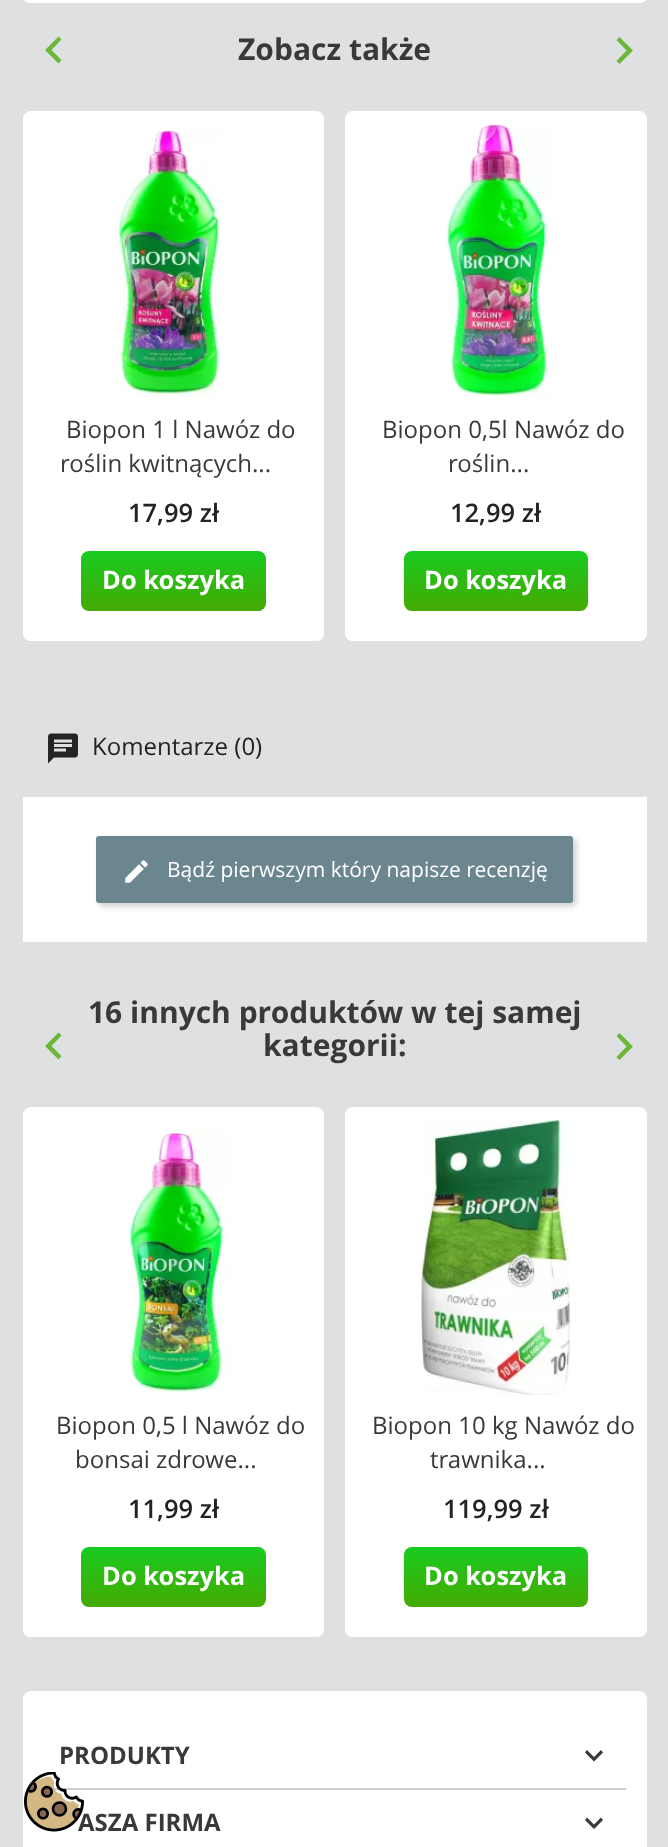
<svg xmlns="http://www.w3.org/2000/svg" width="668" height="1847">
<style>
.a{font:bold 30px Open Sans;fill:#3a3939}
.b{font:24px Open Sans;fill:#3a3939}
.c{font:600 25.5px Open Sans;fill:#232323}
.d{font:bold 25.5px Open Sans;fill:#fff}
.e{font:24px Open Sans;fill:#232323}
.f{font:21px Open Sans;fill:#fff}
.g{font:bold 24px Open Sans;fill:#3a3939}
</style>
<defs>
<linearGradient id="g1" gradientUnits="userSpaceOnUse" x1="173" y1="551" x2="173" y2="611"><stop offset="0" stop-color="#19cb21"/><stop offset="1" stop-color="#44aa01"/></linearGradient>
<linearGradient id="g2" gradientUnits="userSpaceOnUse" x1="496" y1="551" x2="496" y2="611"><stop offset="0" stop-color="#19cb21"/><stop offset="1" stop-color="#44aa01"/></linearGradient>
<linearGradient id="g3" gradientUnits="userSpaceOnUse" x1="173" y1="1547" x2="173" y2="1607"><stop offset="0" stop-color="#19cb21"/><stop offset="1" stop-color="#44aa01"/></linearGradient>
<linearGradient id="g4" gradientUnits="userSpaceOnUse" x1="496" y1="1547" x2="496" y2="1607"><stop offset="0" stop-color="#19cb21"/><stop offset="1" stop-color="#44aa01"/></linearGradient>
</defs>
<rect width="100%" height="100%" fill="#dee0e2"/>
<rect fill="#fff" x="23" y="-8" width="624" height="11" rx="8"/>
<path fill="#6bb839" d="M61.5 60l-3 3.5l-13.5-13.5l13.5-13.5l3 3l-10 10.5z"/>
<path fill="#6bb839" d="M616.5 61l10-10.5l-10-10.5l3-3l13.5 13.5l-13.5 13.5z"/>
<rect fill="#fff" x="23" y="111" width="301" height="530" rx="8"/>
<image href="2.png" x="115" y="124" width="106" height="273"/>
<path fill="#fff" d="M23 413h301v220c0 4.5-3.5 8-8 8h-285c-4.5 0-8-3.5-8-8z"/>
<rect fill="url(#g1)" x="81" y="551" width="185" height="60" rx="8"/>
<rect fill="#fff" x="345" y="111" width="302" height="530" rx="8"/>
<image href="3.png" x="446" y="124" width="106" height="273"/>
<path fill="#fff" d="M345 413h302v220c0 4.5-3.5 8-8 8h-286c-4.5 0-8-3.5-8-8z"/>
<rect fill="url(#g2)" x="404" y="551" width="184" height="60" rx="8"/>
<image href="4.png" x="48" y="733" width="30" height="31"/>
<path fill="#fff" d="M23 797h624v145H23z"/>
<rect fill="#00000033" filter="blur(3px)" x="99" y="839" width="477" height="67" rx="3"/>
<rect fill="#6b868f" x="96" y="836" width="477" height="67" rx="3"/>
<image href="5.png" x="125" y="860" width="23" height="23"/>
<path fill="#6bb839" d="M61.5 1056l-3 3.5l-13.5-13.5l13.5-13.5l3 3l-10 10.5z"/>
<path fill="#6bb839" d="M616.5 1057l10-10.5l-10-10.5l3-3l13.5 13.5l-13.5 13.5z"/>
<rect fill="#fff" x="23" y="1107" width="301" height="530" rx="8"/>
<image href="6.png" x="128" y="1129" width="101" height="264"/>
<path fill="#fff" d="M23 1409h301v220c0 4.5-3.5 8-8 8h-285c-4.5 0-8-3.5-8-8z"/>
<rect fill="url(#g3)" x="81" y="1547" width="185" height="60" rx="8"/>
<rect fill="#fff" x="345" y="1107" width="302" height="530" rx="8"/>
<image href="7.png" x="420" y="1120" width="151" height="275"/>
<path fill="#fff" d="M345 1409h302v220c0 4.5-3.5 8-8 8h-286c-4.5 0-8-3.5-8-8z"/>
<rect fill="url(#g4)" x="404" y="1547" width="184" height="60" rx="8"/>
<rect fill="#fff" x="23" y="1691" width="624" height="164" rx="8"/>
<path fill="#cecece" d="M44 1788h582v2H44z"/>
<path fill="#3a3939" d="M587 1750l7 7l7-7l2 2.5l-9 9l-9-9z"/>
<path fill="#3a3939" d="M587 1817.5l7 7l7-7l2 2.5l-9 9l-9-9z"/>
<text class="a" x="238" y="60">Zobacz także</text>
<text class="b" x="66" y="438">Biopon 1 l Nawóz do</text>
<text class="b" x="60" y="472">roślin kwitnących...</text>
<text class="c" x="128" y="522">17,99 zł</text>
<text class="d" x="102" y="589">Do koszyka</text>
<text class="b" x="382" y="438">Biopon 0,5l Nawóz do</text>
<text class="b" x="448" y="472">roślin...</text>
<text class="c" x="450" y="522">12,99 zł</text>
<text class="d" x="424" y="589">Do koszyka</text>
<text class="e" x="92" y="755">Komentarze (0)</text>
<text class="f" x="167" y="877">Bądź pierwszym który napisze recenzję</text>
<text class="a" x="88" y="1023">16 innych produktów w tej samej</text>
<text class="a" x="263" y="1056">kategorii:</text>
<text class="b" x="56" y="1434">Biopon 0,5 l Nawóz do</text>
<text class="b" x="75" y="1468">bonsai zdrowe...</text>
<text class="c" x="128" y="1518">11,99 zł</text>
<text class="d" x="102" y="1585">Do koszyka</text>
<text class="b" x="372" y="1434">Biopon 10 kg Nawóz do</text>
<text class="b" x="430" y="1468">trawnika...</text>
<text class="c" x="443" y="1518">119,99 zł</text>
<text class="d" x="424" y="1585">Do koszyka</text>
<text class="g" x="59" y="1764">PRODUKTY</text>
<text class="g" x="78" y="1831">ASZA FIRMA</text>
<image href="1.png" x="24" y="1772" width="60" height="60"/>
</svg>
